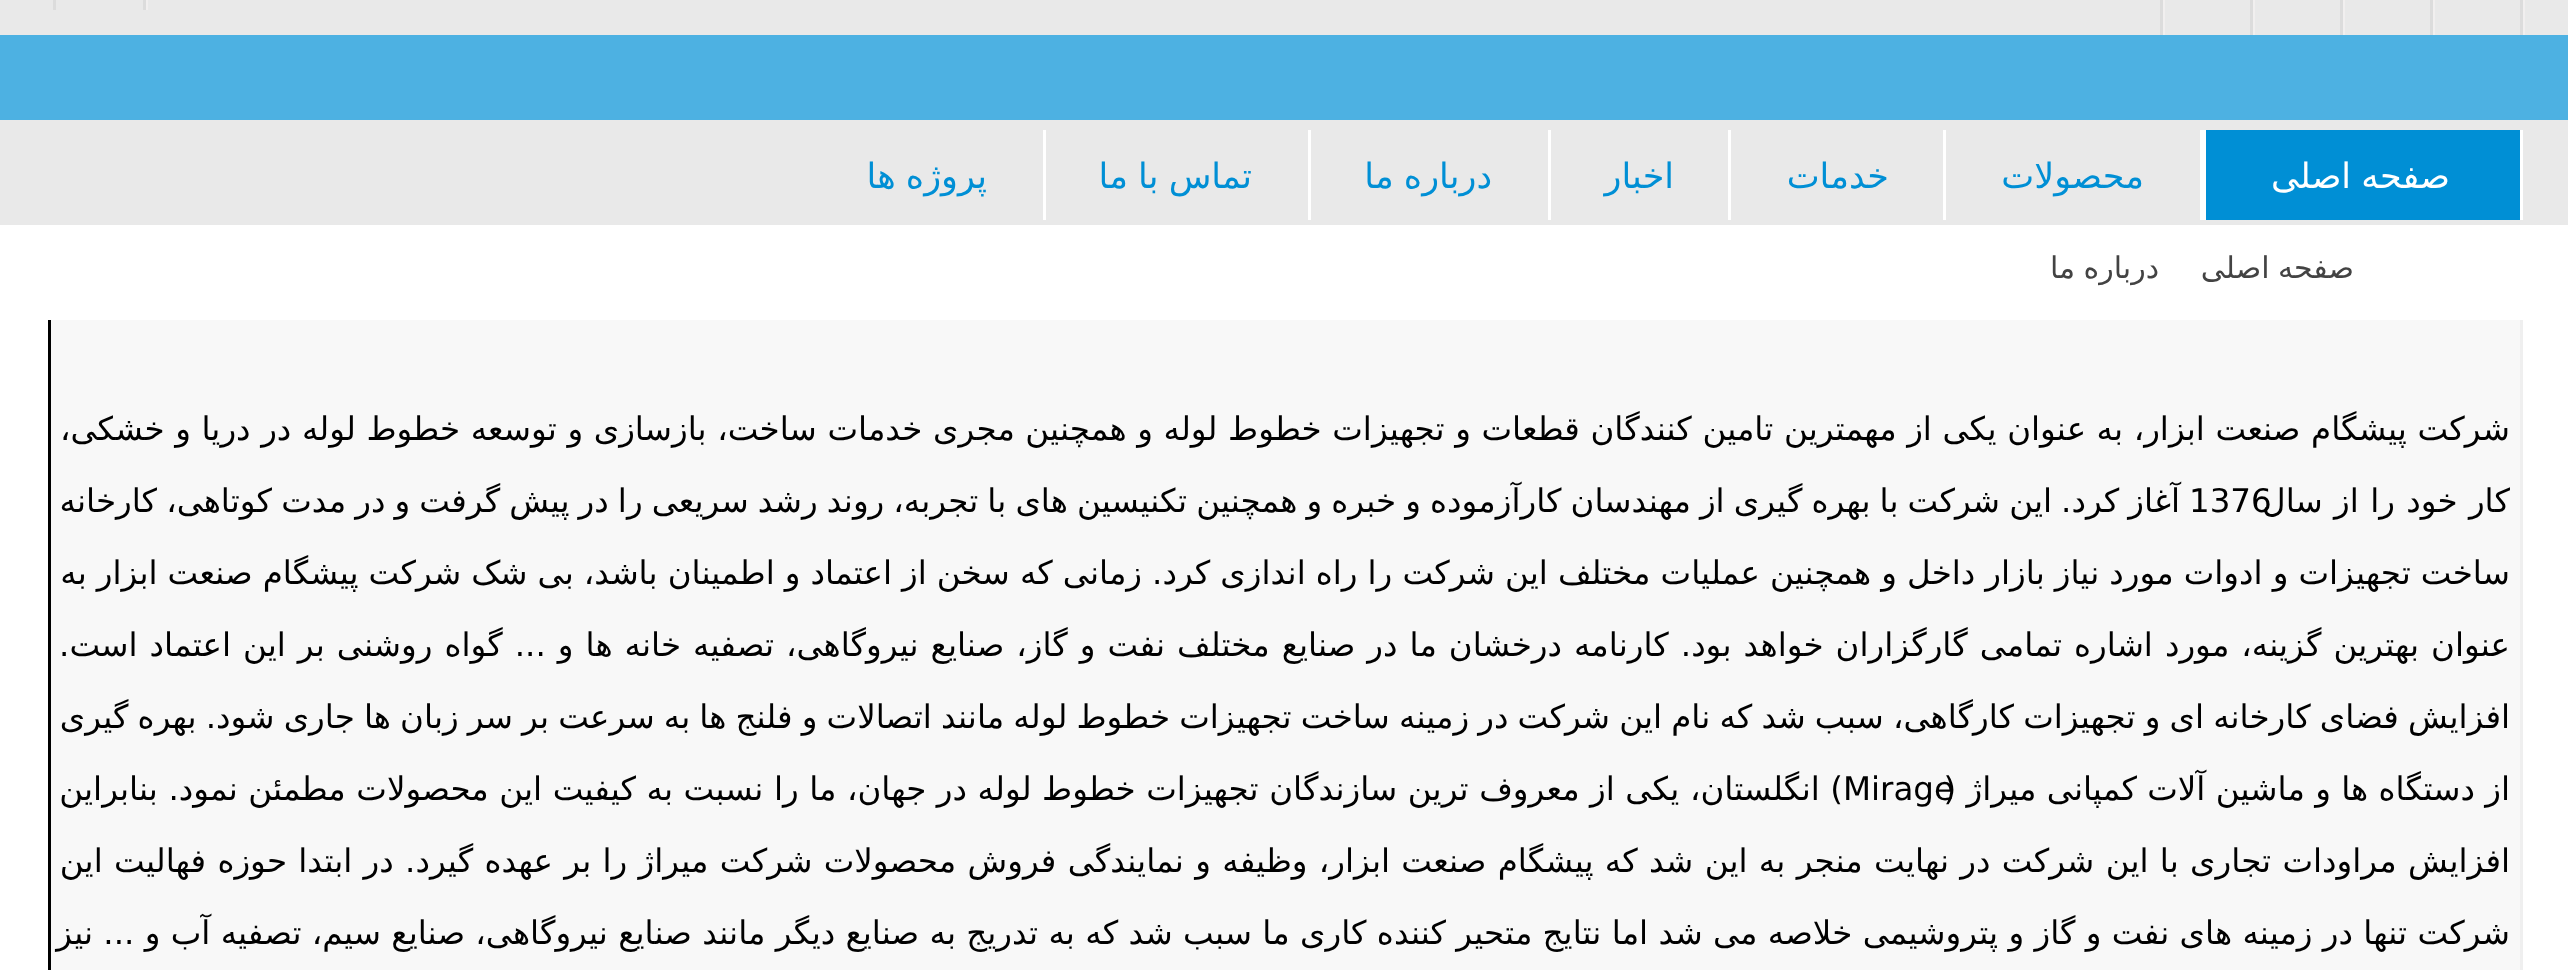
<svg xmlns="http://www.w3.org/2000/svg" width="2568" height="970">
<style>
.a{font:35px DejaVu Sans;direction:rtl;fill:#fff}
.b{font:35px DejaVu Sans;direction:rtl;fill:#008fd5}
.c{font:30px DejaVu Sans;direction:rtl;fill:#434343}
.d{font:32.5px DejaVu Sans;direction:rtl;fill:#000}
.e{font:32.5px DejaVu Sans;fill:#000}
</style>
<rect width="100%" height="100%" fill="#fff"/>
<path fill="#e9e9e9" d="M0 0h2568v225H0z"/>
<path fill="#f1efef" d="M2523 0h2v35H2523z"/>
<path fill="#dcdcdc" d="M2520 0h3v35H2520z"/>
<path fill="#f1efef" d="M2433 0h2v35H2433z"/>
<path fill="#dcdcdc" d="M2430 0h3v35H2430z"/>
<path fill="#f1efef" d="M2343 0h2v35H2343z"/>
<path fill="#dcdcdc" d="M2340 0h3v35H2340z"/>
<path fill="#f1efef" d="M2253 0h2v35H2253z"/>
<path fill="#dcdcdc" d="M2250 0h3v35H2250z"/>
<path fill="#f1efef" d="M2163 0h2v35H2163z"/>
<path fill="#dcdcdc" d="M2160 0h3v35H2160z"/>
<path fill="#f1efef" d="M146 0h2v10H146z"/>
<path fill="#dcdcdc" d="M143 0h3v10H143z"/>
<path fill="#dcdcdc" d="M53 0h3v10H53z"/>
<path fill="#4db1e2" d="M0 35h2568v85H0z"/>
<path fill="#008fd5" d="M2206 130h314v90H2206z"/>
<path fill="#fff" d="M2520 130h3v90H2520z"/>
<path fill="#fff" d="M2200 130h6v90H2200z"/>
<path fill="#fff" d="M1943 130h3v90H1943z"/>
<path fill="#fff" d="M1728 130h3v90H1728z"/>
<path fill="#fff" d="M1548 130h3v90H1548z"/>
<path fill="#fff" d="M1308 130h3v90H1308z"/>
<path fill="#fff" d="M1043 130h3v90H1043z"/>
<path fill="#f8f8f8" d="M51 320h2469v650H51z"/>
<path fill="#efefef" d="M2520 320h3v650H2520z"/>
<path fill="#000" d="M48 320h3v650H48z"/>
<text class="a" x="2450" y="188" word-spacing="-1">صفحه اصلی</text>
<text class="b" x="2144" y="188">محصولات</text>
<text class="b" x="1889" y="188">خدمات</text>
<text class="b" x="1674" y="188">اخبار</text>
<text class="b" x="1492" y="188" word-spacing="-1">درباره ما</text>
<text class="b" x="1252" y="188" word-spacing="-1">تماس با ما</text>
<text class="b" x="987" y="188" word-spacing="-1">پروژه ها</text>
<text class="c" x="2354" y="278" word-spacing="-1.2">صفحه اصلی</text>
<text class="c" x="2159" y="278" word-spacing="-1.2">درباره ما</text>
<text class="d" x="2510" y="440" word-spacing="0.25">شرکت پیشگام صنعت ابزار، به عنوان یکی از مهمترین تامین کنندگان قطعات و تجهیزات خطوط لوله و همچنین مجری خدمات ساخت، بازسازی و توسعه خطوط لوله در دریا و خشکی،</text>
<text class="d" x="2180" y="512" word-spacing="-1.25">آغاز کرد. این شرکت با بهره گیری از مهندسان کارآزموده و خبره و همچنین تکنیسین های با تجربه، روند رشد سریعی را در پیش گرفت و در مدت کوتاهی، کارخانه</text>
<text class="e" x="2189" y="512">1376</text>
<text class="d" x="2510" y="512" word-spacing="1">کار خود را از سال</text>
<text class="d" x="2510" y="584" word-spacing="-0.25">ساخت تجهیزات و ادوات مورد نیاز بازار داخل و همچنین عملیات مختلف این شرکت را راه اندازی کرد. زمانی که سخن از اعتماد و اطمینان باشد، بی شک شرکت پیشگام صنعت ابزار به</text>
<text class="d" x="2510" y="656" word-spacing="1.7">عنوان بهترین گزینه، مورد اشاره تمامی گارگزاران خواهد بود. کارنامه درخشان ما در صنایع مختلف نفت و گاز، صنایع نیروگاهی، تصفیه خانه ها و ... گواه روشنی بر این اعتماد است.</text>
<text class="d" x="2510" y="728" word-spacing="-1.2">افزایش فضای کارخانه ای و تجهیزات کارگاهی، سبب شد که نام این شرکت در زمینه ساخت تجهیزات خطوط لوله مانند اتصالات و فلنج ها به سرعت بر سر زبان ها جاری شود. بهره گیری</text>
<text class="e" x="1843" y="800">Mirage</text>
<text class="d" x="2510" y="800">از دستگاه ها و ماشین آلات کمپانی میراژ (</text>
<text class="d" x="1843" y="800" word-spacing="0.2">) انگلستان، یکی از معروف ترین سازندگان تجهیزات خطوط لوله در جهان، ما را نسبت به کیفیت این محصولات مطمئن نمود. بنابراین</text>
<text class="d" x="2510" y="872" word-spacing="1">افزایش مراودات تجاری با این شرکت در نهایت منجر به این شد که پیشگام صنعت ابزار، وظیفه و نمایندگی فروش محصولات شرکت میراژ را بر عهده گیرد. در ابتدا حوزه فهالیت این</text>
<text class="d" x="2510" y="944">شرکت تنها در زمینه های نفت و گاز و پتروشیمی خلاصه می شد اما نتایج متحیر کننده کاری ما سبب شد که به تدریج به صنایع دیگر مانند صنایع نیروگاهی، صنایع سیم، تصفیه آب و ... نیز</text>
</svg>
